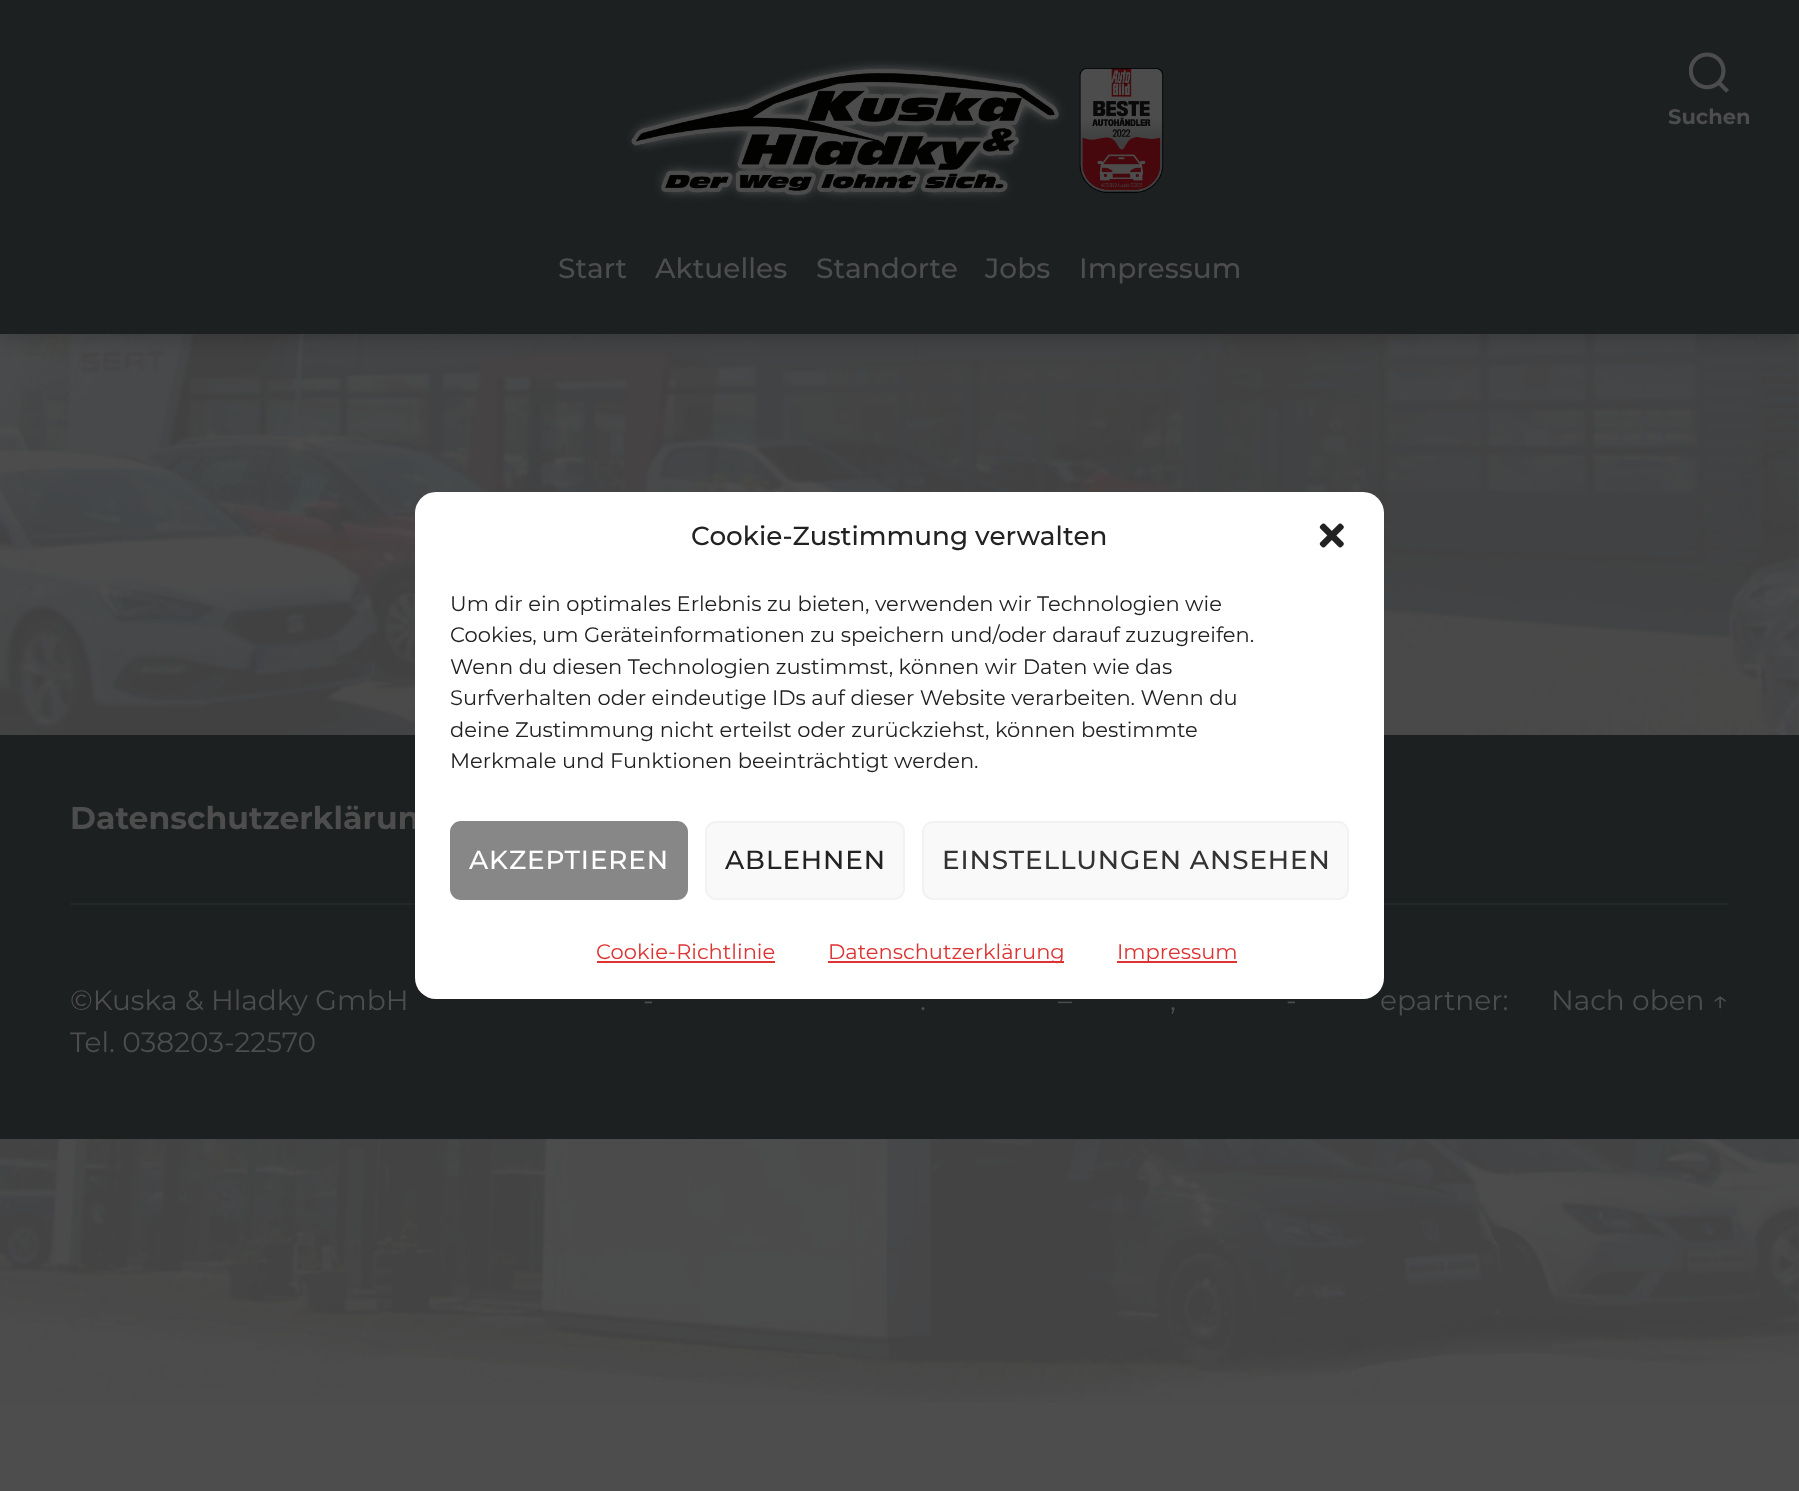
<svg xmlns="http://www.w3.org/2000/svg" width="1799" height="1491">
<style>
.a{font:bold 21px Montserrat;fill:#4d4d4d}
.b{font:500 28px Montserrat;fill:#4d4d4d}
.c{font:bold 31.5px Montserrat;fill:#4d4d4d}
.d{font:28px Montserrat;fill:#4d4d4d}
.e{font:21px Montserrat;fill:#222}
.f{font:21px Montserrat;fill:#d33}
.g{font:500 26.25px Montserrat;letter-spacing:0.9px;fill:#333}
.h{font:500 26.25px Montserrat;letter-spacing:0.9px;fill:#222}
.i{font:500 26.25px Montserrat;letter-spacing:0.9px;fill:#fff}
.j{font:500 26.25px Montserrat;fill:#222}
</style>
<rect width="100%" height="100%" fill="#4d4d4d"/>
<image href="1.png" x="0" y="334" width="1799" height="1069"/>
<path fill="#00000029" filter="blur(9px)" d="M0 4h1799v334H0z"/>
<path fill="#1c2021" d="M0 0h1799v334H0z"/>
<image href="2.png" x="626" y="59" width="538" height="145"/>
<image href="3.png" x="1689" y="52" width="40" height="41"/>
<path fill="#1c2021" d="M0 735h1799v404H0z"/>
<path fill="#222828" d="M70 903h1659v2H70z"/>
<text class="a" x="1668" y="124">Suchen</text>
<text class="b" x="558" y="278">Start</text>
<text class="b" x="655" y="278">Aktuelles</text>
<text class="b" x="816" y="278">Standorte</text>
<text class="b" x="985" y="278">Jobs</text>
<text class="b" x="1079" y="278">Impressum</text>
<text class="c" x="70" y="829">Datenschutzerklärun</text>
<text class="d" x="70" y="1010">©Kuska &amp; Hladky GmbH</text>
<text class="d" x="643" y="1010">-</text>
<text class="d" x="1058" y="1010">–</text>
<text class="d" x="1286" y="1010">-</text>
<text class="d" x="1380" y="1010">epartner:</text>
<rect fill="#fff" x="415" y="492" width="969" height="507" rx="21"/>
<text class="e" x="450" y="768">Merkmale und Funktionen beeinträchtigt werden.</text>
<text class="e" x="450" y="737">deine Zustimmung nicht erteilst oder zurückziehst, können bestimmte</text>
<text class="e" x="450" y="705">Surfverhalten oder eindeutige IDs auf dieser Website verarbeiten. Wenn du</text>
<text class="e" x="450" y="674">Wenn du diesen Technologien zustimmst, können wir Daten wie das</text>
<text class="e" x="450" y="642">Cookies, um Geräteinformationen zu speichern und/oder darauf zuzugreifen.</text>
<text class="e" x="450" y="611">Um dir ein optimales Erlebnis zu bieten, verwenden wir Technologien wie</text>
<image href="4.png" x="1319" y="523" width="25" height="25"/>
<path fill="#d33" d="M1117 961h120v2H1117z"/>
<text class="f" x="1117" y="959">Impressum</text>
<path fill="#d33" d="M828 961h236v2H828z"/>
<text class="f" x="828" y="959">Datenschutzerklärung</text>
<text class="f" x="596" y="959">Cookie-Richtlinie</text>
<path fill="#d33" d="M597 961h178v2H597z"/>
<rect fill="#f9f9f9" stroke="#f2f2f2" stroke-width="2" x="923" y="822" width="425" height="77" rx="10"/>
<text class="g" x="942" y="869">EINSTELLUNGEN ANSEHEN</text>
<rect fill="#f9f9f9" stroke="#f2f2f2" stroke-width="2" x="706" y="822" width="198" height="77" rx="10"/>
<text class="h" x="725" y="869">ABLEHNEN</text>
<rect fill="#878787" stroke="#878787" stroke-width="2" x="451" y="822" width="236" height="77" rx="10"/>
<text class="i" x="469" y="869">AKZEPTIEREN</text>
<text class="j" x="691" y="545">Cookie-Zustimmung verwalten</text>
<text class="d" x="920" y="1010">.</text>
<text class="d" x="1170" y="1010">,</text>
<text class="d" x="70" y="1052">Tel. 038203-22570</text>
<text class="d" x="1551" y="1010">Nach oben ↑</text>
</svg>
